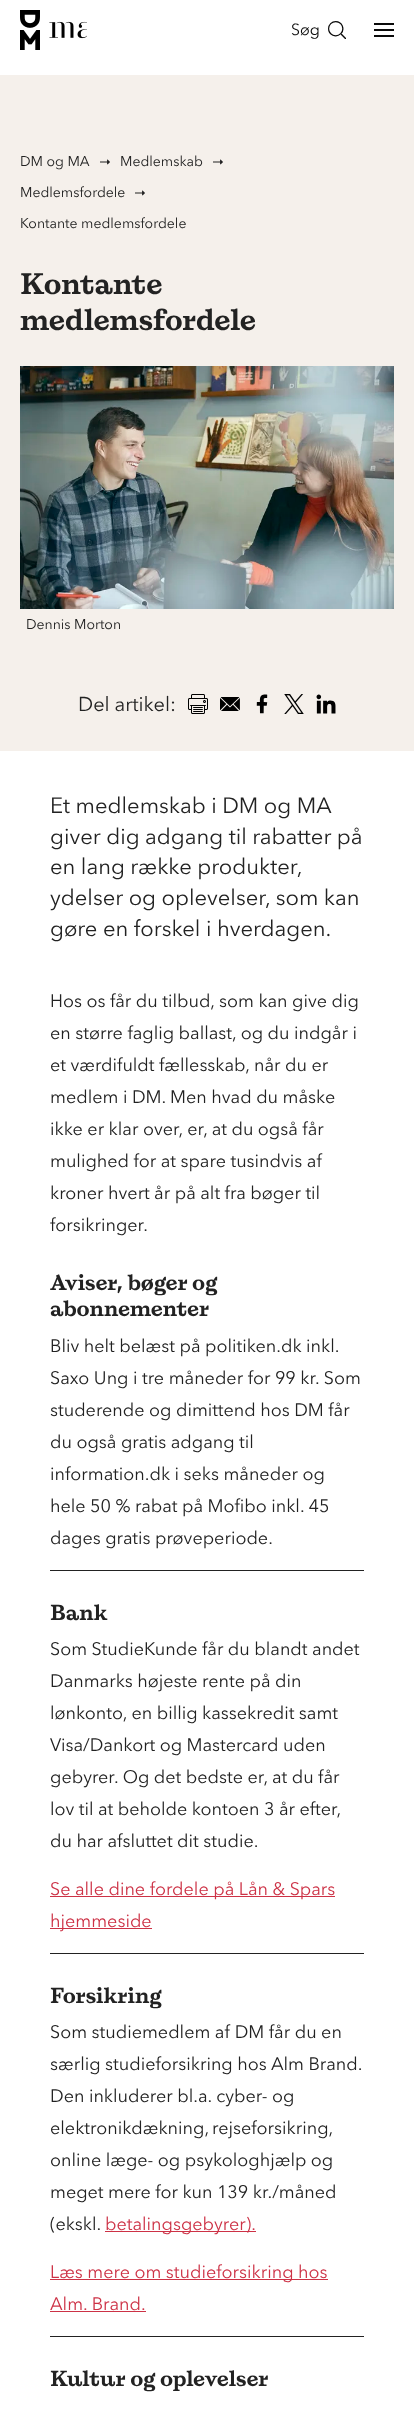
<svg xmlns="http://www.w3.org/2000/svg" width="414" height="2411">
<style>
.a{font:16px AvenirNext;fill:#0a0a0a}
.b{font:14px AvenirNext;fill:#222}
.c{font:bold 30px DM;fill:#222}
.d{font:20px AvenirNext;fill:#222}
.e{font:22px AvenirNext;fill:#222}
.f{font:18px AvenirNext;fill:#222}
.g{font:bold 22px DM;fill:#222}
.h{font:18px AvenirNext;fill:#cd3246}
</style>
<rect width="100%" height="100%" fill="#fff"/>
<image href="1.png" x="20" y="10" width="67" height="40"/>
<image href="2.png" x="328" y="21" width="18" height="18"/>
<path fill="#0a0a0a" d="M374 23h20v2H374z"/>
<path fill="#0a0a0a" d="M374 29h20v2H374z"/>
<path fill="#0a0a0a" d="M374 35h20v2H374z"/>
<path fill="#f5f0eb" d="M0 75h414v676H0z"/>
<image href="3.png" x="100" y="159" width="10" height="6"/>
<image href="3.png" x="213" y="159" width="10" height="6"/>
<image href="3.png" x="135" y="190" width="10" height="6"/>
<image href="4.png" x="20" y="366" width="374" height="243"/>
<image href="5.png" x="188" y="694" width="20" height="20"/>
<image href="6.png" x="220" y="697" width="20" height="14"/>
<image href="7.png" x="256" y="694" width="12" height="20"/>
<image href="8.png" x="284" y="694" width="20" height="20"/>
<image href="9.png" x="316" y="694" width="20" height="20"/>
<path fill="#222" d="M50 1570h314v1H50z"/>
<path fill="#cd3246" d="M50 1896h285v1H50z"/>
<path fill="#cd3246" d="M50 1928h102v1H50z"/>
<path fill="#222" d="M50 1953h314v1H50z"/>
<path fill="#cd3246" d="M105 2231h151v1H105z"/>
<path fill="#cd3246" d="M50 2279h278v1H50z"/>
<path fill="#cd3246" d="M50 2311h96v1H50z"/>
<path fill="#222" d="M50 2336h314v1H50z"/>
<text class="a" x="291" y="35">Søg</text>
<text class="b" x="20" y="166">DM og MA</text>
<text class="b" x="120" y="166">Medlemskab</text>
<text class="b" x="20" y="197">Medlemsfordele</text>
<text class="b" x="20" y="228">Kontante medlemsfordele</text>
<text class="c" x="20" y="294">Kontante</text>
<text class="c" x="20" y="330">medlemsfordele</text>
<text class="b" x="26" y="629">Dennis Morton</text>
<text class="d" x="78" y="711">Del artikel:</text>
<text class="e" x="50" y="813">Et medlemskab i DM og MA</text>
<text class="e" x="50" y="844">giver dig adgang til rabatter på</text>
<text class="e" x="50" y="874">en lang række produkter,</text>
<text class="e" x="50" y="905">ydelser og oplevelser, som kan</text>
<text class="e" x="50" y="936">gøre en forskel i hverdagen.</text>
<text class="f" x="50" y="1007">Hos os får du tilbud, som kan give dig</text>
<text class="f" x="50" y="1039">en større faglig ballast, og du indgår i</text>
<text class="f" x="50" y="1071">et værdifuldt fællesskab, når du er</text>
<text class="f" x="50" y="1103">medlem i DM. Men hvad du måske</text>
<text class="f" x="50" y="1135">ikke er klar over, er, at du også får</text>
<text class="f" x="50" y="1167">mulighed for at spare tusindvis af</text>
<text class="f" x="50" y="1199">kroner hvert år på alt fra bøger til</text>
<text class="f" x="50" y="1231">forsikringer.</text>
<text class="g" x="50" y="1290">Aviser, bøger og</text>
<text class="g" x="50" y="1316">abonnementer</text>
<text class="f" x="50" y="1352">Bliv helt belæst på politiken.dk inkl.</text>
<text class="f" x="50" y="1384">Saxo Ung i tre måneder for 99 kr. Som</text>
<text class="f" x="50" y="1416">studerende og dimittend hos DM får</text>
<text class="f" x="50" y="1448">du også gratis adgang til</text>
<text class="f" x="50" y="1480">information.dk i seks måneder og</text>
<text class="f" x="50" y="1512">hele 50 % rabat på Mofibo inkl. 45</text>
<text class="f" x="50" y="1544">dages gratis prøveperiode.</text>
<text class="g" x="50" y="1620">Bank</text>
<text class="f" x="50" y="1655">Som StudieKunde får du blandt andet</text>
<text class="f" x="50" y="1687">Danmarks højeste rente på din</text>
<text class="f" x="50" y="1719">lønkonto, en billig kassekredit samt</text>
<text class="f" x="50" y="1751">Visa/Dankort og Mastercard uden</text>
<text class="f" x="50" y="1783">gebyrer. Og det bedste er, at du får</text>
<text class="f" x="50" y="1815">lov til at beholde kontoen 3 år efter,</text>
<text class="f" x="50" y="1847">du har afsluttet dit studie.</text>
<text class="h" x="50" y="1895">Se alle dine fordele på Lån &amp; Spars</text>
<text class="h" x="50" y="1927">hjemmeside</text>
<text class="g" x="50" y="2003">Forsikring</text>
<text class="f" x="50" y="2038">Som studiemedlem af DM får du en</text>
<text class="f" x="50" y="2070">særlig studieforsikring hos Alm Brand.</text>
<text class="f" x="50" y="2102">Den inkluderer bl.a. cyber- og</text>
<text class="f" x="50" y="2134" word-spacing="-1">elektronikdækning, rejseforsikring,</text>
<text class="f" x="50" y="2166">online læge- og psykologhjælp og</text>
<text class="f" x="50" y="2198">meget mere for kun 139 kr./måned</text>
<text class="f" x="50" y="2230">(ekskl.</text>
<text class="h" x="105" y="2230">betalingsgebyrer).</text>
<text class="h" x="50" y="2278">Læs mere om studieforsikring hos</text>
<text class="h" x="50" y="2310">Alm. Brand.</text>
<text class="g" x="50" y="2386">Kultur og oplevelser</text>
</svg>
